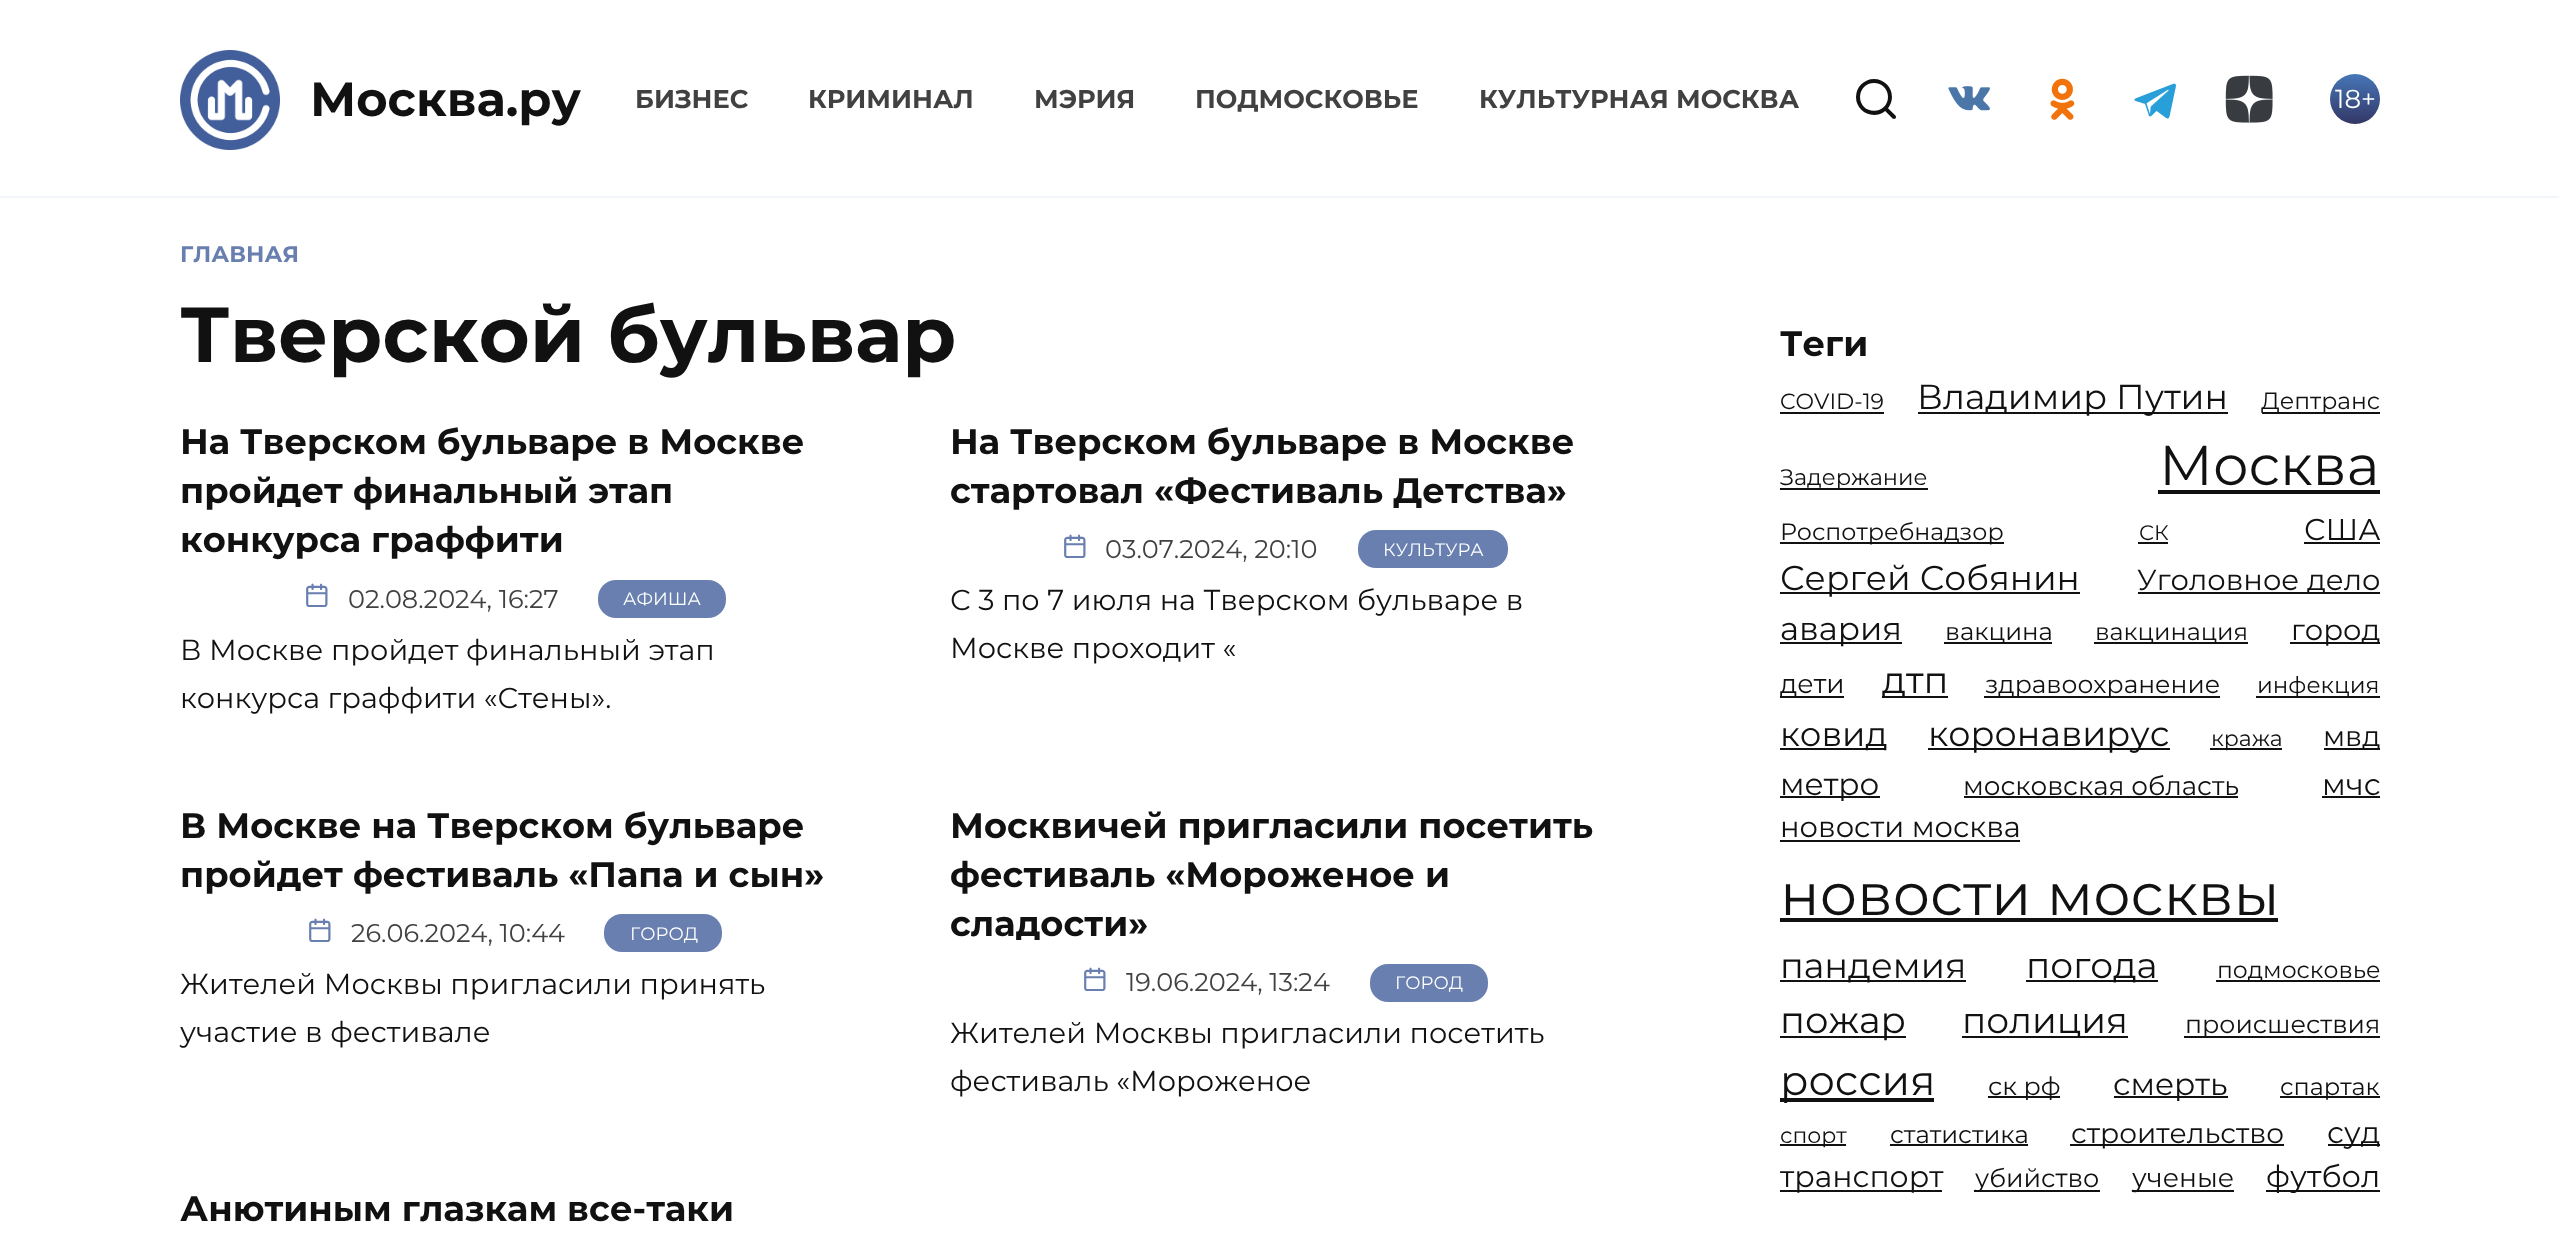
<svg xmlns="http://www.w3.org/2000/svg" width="2559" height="1246">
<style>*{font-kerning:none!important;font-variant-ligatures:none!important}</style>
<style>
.a{font:bold 48px Montserrat;fill:#111}
.b{font:bold 25.6px Montserrat;fill:#414141}
.c{font:48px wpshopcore;fill:#111}
.d{font:26px Montserrat;fill:#fff}
.e{font:bold 22.5px Montserrat;fill:#687fb0}
.f{font:bold 78px Montserrat;fill:#111}
.g{font:bold 35.25px Montserrat;fill:#111}
.h{font:25.6px wpshopcore;fill:#687fb0}
.i{font:25.6px Montserrat;fill:#414141}
.j{font:18px Montserrat;fill:#fff}
.k{font:28.8px Montserrat;fill:#111}
.l{font:22px Montserrat;fill:#111}
.m{font:34.75px Montserrat;fill:#111}
.n{font:23.5px Montserrat;fill:#111}
.o{font:22.5px Montserrat;fill:#111}
.p{font:56px Montserrat;fill:#111}
.q{font:23.75px Montserrat;fill:#111}
.r{font:21px Montserrat;fill:#111}
.s{font:30px Montserrat;fill:#111}
.t{font:34.4px Montserrat;fill:#111}
.u{font:29px Montserrat;fill:#111}
.v{font:32.5px Montserrat;fill:#111}
.w{font:24.5px Montserrat;fill:#111}
.x{font:24px Montserrat;fill:#111}
.y{font:26.5px Montserrat;fill:#111}
.z{font:37px Montserrat;fill:#111}
.a1{font:25px Montserrat;fill:#111}
.b1{font:23px Montserrat;fill:#111}
.c1{font:34px Montserrat;fill:#111}
.d1{font:35px Montserrat;fill:#111}
.e1{font:28px Montserrat;fill:#111}
.f1{font:31px Montserrat;fill:#111}
.g1{font:26.25px Montserrat;fill:#111}
.h1{font:58.75px Montserrat;fill:#111}
.i1{font:35.25px Montserrat;fill:#111}
.j1{font:36px Montserrat;fill:#111}
.k1{font:25.25px Montserrat;fill:#111}
.l1{font:41.5px Montserrat;fill:#111}
.m1{font:25.5px Montserrat;fill:#111}
.n1{font:30.5px Montserrat;fill:#111}
</style>
<defs>
<linearGradient id="g1" gradientUnits="userSpaceOnUse" x1="2355" y1="74" x2="2355" y2="124"><stop offset="0" stop-color="#4676b7"/><stop offset="1" stop-color="#333766"/></linearGradient>
</defs>
<rect width="100%" height="100%" fill="#fff"/>
<path fill="#f2f5f9" d="M0 196h2559v2H0z"/>
<image href="1.png" x="180" y="50" width="100" height="100"/>
<image href="2.png" x="1948" y="86" width="42" height="25"/>
<image href="3.png" x="2050" y="78" width="25" height="42"/>
<image href="4.png" x="2134" y="83" width="42" height="36"/>
<image href="5.png" x="2225" y="75" width="48" height="48"/>
<circle fill="url(#g1)" cx="2355" cy="99" r="25"/>
<rect fill="#687fb0" x="598" y="580" width="128" height="38" rx="18"/>
<rect fill="#687fb0" x="1358" y="530" width="150" height="38" rx="18"/>
<rect fill="#687fb0" x="604" y="914" width="118" height="38" rx="18"/>
<rect fill="#687fb0" x="1370" y="964" width="118" height="38" rx="18"/>
<path fill="#111" d="M1780 412h104v2H1780z"/>
<path fill="#111" d="M1918 412h310v2H1918z"/>
<path fill="#111" d="M2262 412h118v2H2262z"/>
<path fill="#111" d="M1780 488h148v2H1780z"/>
<path fill="#111" d="M2158 490h222v4H2158z"/>
<path fill="#111" d="M1780 542h224v2H1780z"/>
<path fill="#111" d="M2138 542h30v2H2138z"/>
<path fill="#111" d="M2304 542h76v2H2304z"/>
<path fill="#111" d="M1780 592h300v2H1780z"/>
<path fill="#111" d="M2138 592h242v2H2138z"/>
<path fill="#111" d="M1780 642h122v2H1780z"/>
<path fill="#111" d="M1944 642h108v2H1944z"/>
<path fill="#111" d="M2094 642h154v2H2094z"/>
<path fill="#111" d="M2290 642h90v2H2290z"/>
<path fill="#111" d="M1780 696h64v2H1780z"/>
<path fill="#111" d="M1882 696h66v2H1882z"/>
<path fill="#111" d="M1984 696h236v2H1984z"/>
<path fill="#111" d="M2256 696h124v2H2256z"/>
<path fill="#111" d="M1780 748h106v2H1780z"/>
<path fill="#111" d="M1928 748h242v2H1928z"/>
<path fill="#111" d="M2210 748h72v2H2210z"/>
<path fill="#111" d="M2324 748h56v2H2324z"/>
<path fill="#111" d="M1780 796h100v2H1780z"/>
<path fill="#111" d="M1964 796h274v2H1964z"/>
<path fill="#111" d="M2322 796h58v2H2322z"/>
<path fill="#111" d="M1780 840h240v2H1780z"/>
<path fill="#111" d="M1780 918h498v4H1780z"/>
<path fill="#111" d="M1780 980h186v2H1780z"/>
<path fill="#111" d="M2026 980h132v2H2026z"/>
<path fill="#111" d="M2216 980h164v2H2216z"/>
<path fill="#111" d="M1780 1036h126v2H1780z"/>
<path fill="#111" d="M1962 1036h166v2H1962z"/>
<path fill="#111" d="M2184 1036h196v2H2184z"/>
<path fill="#111" d="M1780 1098h154v4H1780z"/>
<path fill="#111" d="M1988 1096h72v2H1988z"/>
<path fill="#111" d="M2114 1096h114v2H2114z"/>
<path fill="#111" d="M2280 1096h100v2H2280z"/>
<path fill="#111" d="M1780 1144h66v2H1780z"/>
<path fill="#111" d="M1890 1144h138v2H1890z"/>
<path fill="#111" d="M2070 1144h214v2H2070z"/>
<path fill="#111" d="M2328 1144h52v2H2328z"/>
<path fill="#111" d="M1780 1190h162v2H1780z"/>
<path fill="#111" d="M1974 1190h126v2H1974z"/>
<path fill="#111" d="M2132 1190h102v2H2132z"/>
<path fill="#111" d="M2266 1190h114v2H2266z"/>
<text class="a" x="310" y="116">Москва.ру</text>
<text class="b" x="635" y="108">БИЗНЕС</text>
<text class="b" x="808" y="108">КРИМИНАЛ</text>
<text class="b" x="1034" y="108">МЭРИЯ</text>
<text class="b" x="1195" y="108">ПОДМОСКОВЬЕ</text>
<text class="b" x="1479" y="108">КУЛЬТУРНАЯ</text>
<text class="b" x="1676" y="108">МОСКВА</text>
<text class="c" x="1852" y="119">🔍</text>
<text class="d" x="2335" y="108">18+</text>
<text class="e" x="180" y="262">ГЛАВНАЯ</text>
<text class="f" x="180" y="362">Тверской бульвар</text>
<text class="g" x="180" y="454">На Тверском бульваре в Москве</text>
<text class="g" x="180" y="503">пройдет финальный этап</text>
<text class="g" x="180" y="552">конкурса граффити</text>
<text class="h" x="304" y="606">📅</text>
<text class="i" x="348" y="608">02.08.2024, 16:27</text>
<text class="j" x="623" y="605">АФИША</text>
<text class="k" x="180" y="660">В Москве пройдет финальный этап</text>
<text class="k" x="180" y="708">конкурса граффити «Стены».</text>
<text class="g" x="950" y="454">На Тверском бульваре в Москве</text>
<text class="g" x="950" y="503">стартовал «Фестиваль Детства»</text>
<text class="h" x="1062" y="557">📅</text>
<text class="i" x="1105" y="558">03.07.2024, 20:10</text>
<text class="j" x="1383" y="556">КУЛЬТУРА</text>
<text class="k" x="950" y="610">С 3 по 7 июля на Тверском бульваре в</text>
<text class="k" x="950" y="658">Москве проходит «</text>
<text class="g" x="180" y="838">В Москве на Тверском бульваре</text>
<text class="g" x="180" y="887">пройдет фестиваль «Папа и сын»</text>
<text class="h" x="307" y="941">📅</text>
<text class="i" x="351" y="942">26.06.2024, 10:44</text>
<text class="j" x="630" y="940">ГОРОД</text>
<text class="k" x="180" y="994">Жителей Москвы пригласили принять</text>
<text class="k" x="180" y="1042">участие в фестивале</text>
<text class="g" x="950" y="838">Москвичей пригласили посетить</text>
<text class="g" x="950" y="887">фестиваль «Мороженое и</text>
<text class="g" x="950" y="936">сладости»</text>
<text class="h" x="1082" y="990">📅</text>
<text class="i" x="1126" y="991">19.06.2024, 13:24</text>
<text class="j" x="1395" y="989">ГОРОД</text>
<text class="k" x="950" y="1043">Жителей Москвы пригласили посетить</text>
<text class="k" x="950" y="1091">фестиваль «Мороженое</text>
<text class="g" x="180" y="1221">Анютиным глазкам все-таки</text>
<text class="g" x="1780" y="356">Теги</text>
<text class="l" x="1780" y="409">COVID-19</text>
<text class="m" x="1917" y="409">Владимир Путин</text>
<text class="n" x="2261" y="409">Дептранс</text>
<text class="o" x="1780" y="485">Задержание</text>
<text class="p" x="2159" y="485">Москва</text>
<text class="q" x="1780" y="540">Роспотребнадзор</text>
<text class="r" x="2139" y="540">СК</text>
<text class="s" x="2304" y="540">США</text>
<text class="t" x="1780" y="590">Сергей Собянин</text>
<text class="u" x="2137" y="590">Уголовное дело</text>
<text class="v" x="1780" y="640">авария</text>
<text class="w" x="1945" y="640">вакцина</text>
<text class="x" x="2095" y="640">вакцинация</text>
<text class="u" x="2291" y="640">город</text>
<text class="y" x="1780" y="693">дети</text>
<text class="z" x="1882" y="693">дтп</text>
<text class="a1" x="1985" y="693">здравоохранение</text>
<text class="b1" x="2257" y="693">инфекция</text>
<text class="c1" x="1780" y="746">ковид</text>
<text class="d1" x="1928" y="746">коронавирус</text>
<text class="l" x="2211" y="746">кража</text>
<text class="e1" x="2323" y="746">мвд</text>
<text class="f1" x="1780" y="795">метро</text>
<text class="g1" x="1963" y="795">московская область</text>
<text class="s" x="2322" y="795">мчс</text>
<text class="u" x="1780" y="837">новости москва</text>
<text class="h1" x="1780" y="915">новости москвы</text>
<text class="i1" x="1780" y="978">пандемия</text>
<text class="j1" x="2026" y="978">погода</text>
<text class="n" x="2217" y="978">подмосковье</text>
<text class="z" x="1780" y="1033">пожар</text>
<text class="j1" x="1962" y="1033">полиция</text>
<text class="k1" x="2185" y="1033">происшествия</text>
<text class="l1" x="1780" y="1095">россия</text>
<text class="k1" x="1988" y="1095">ск рф</text>
<text class="f1" x="2113" y="1095">смерть</text>
<text class="x" x="2280" y="1095">спартак</text>
<text class="l" x="1780" y="1143">спорт</text>
<text class="w" x="1890" y="1143">статистика</text>
<text class="e1" x="2071" y="1143">строительство</text>
<text class="s" x="2327" y="1143">суд</text>
<text class="s" x="1780" y="1187">транспорт</text>
<text class="m1" x="1975" y="1187">убийство</text>
<text class="y" x="2132" y="1187">ученые</text>
<text class="n1" x="2266" y="1187">футбол</text>
</svg>
